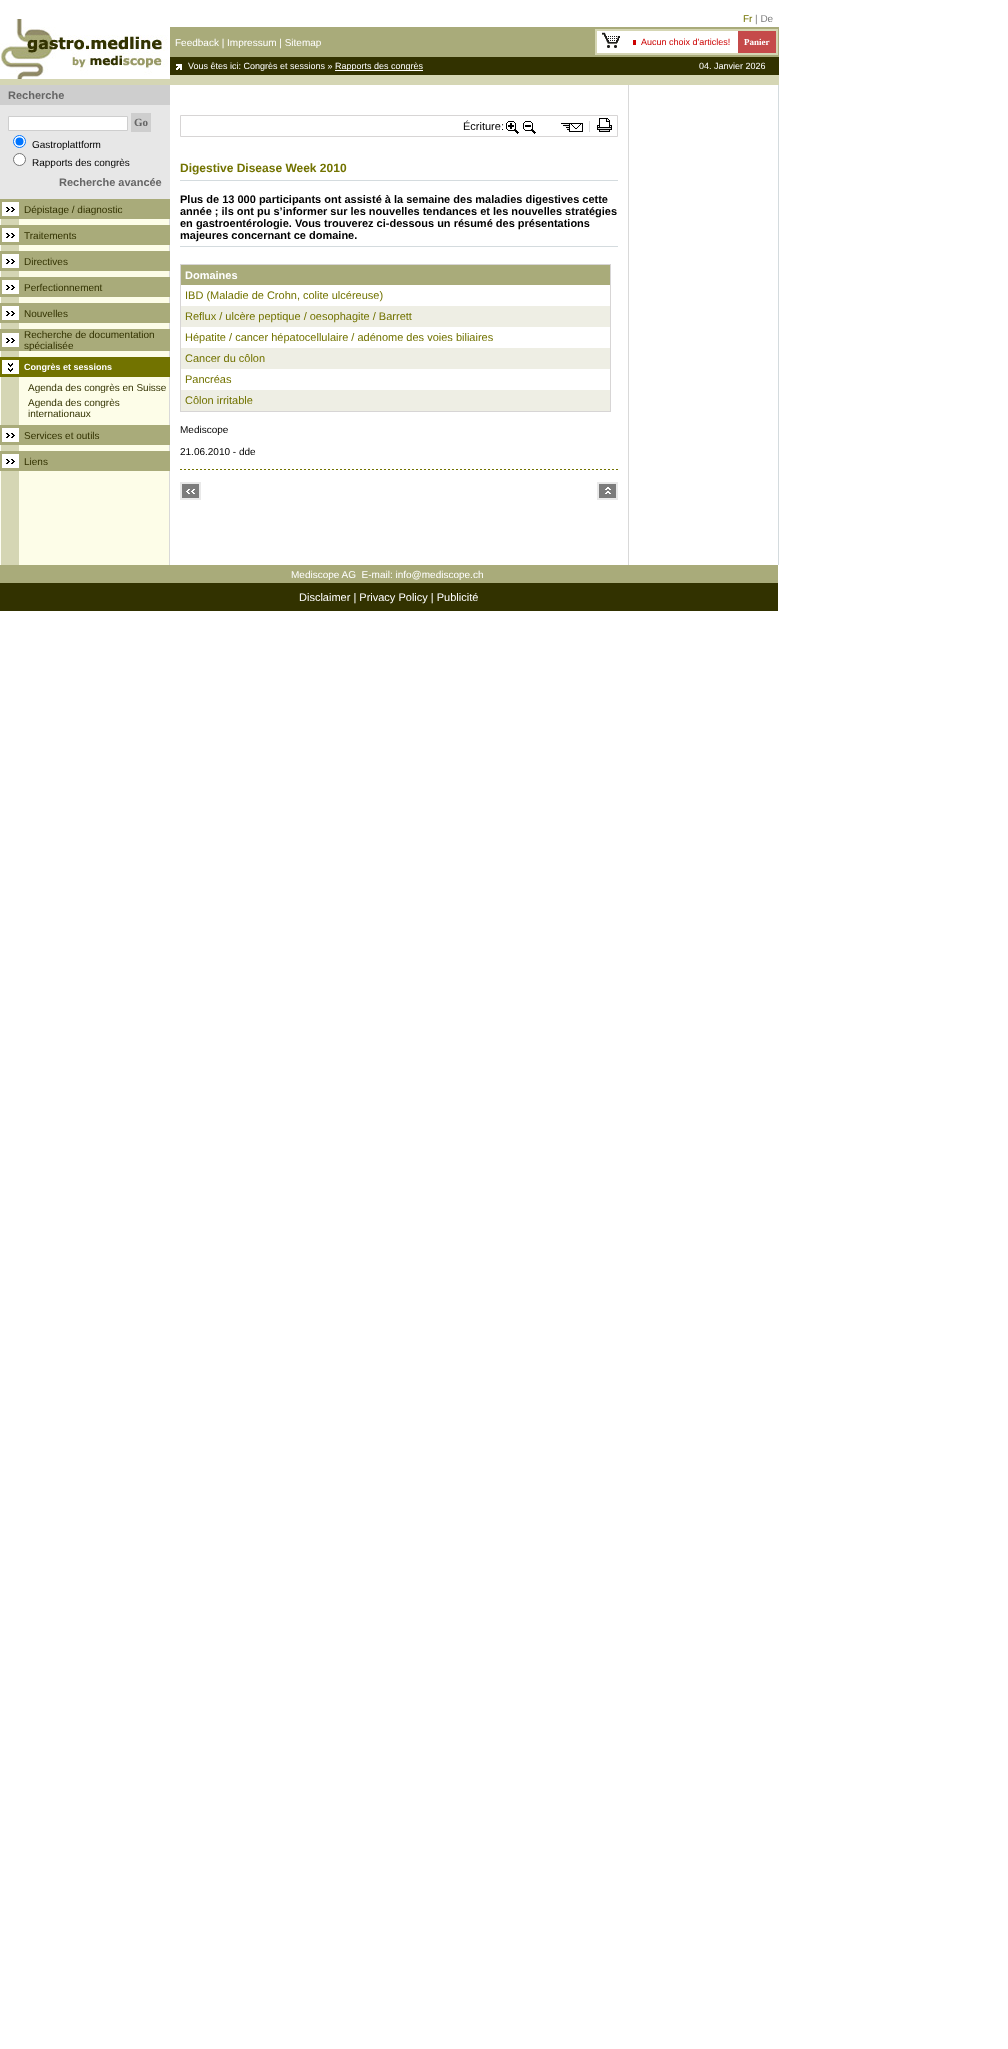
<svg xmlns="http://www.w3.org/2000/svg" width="1008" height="2049">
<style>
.a{font:10px Liberation Sans;fill:#727300}
.b{font:10px Liberation Sans;fill:#7c7c7c}
.c{font:10px Liberation Sans;fill:#fff}
.d{font:9px Liberation Sans;fill:#c00}
.e{font:bold 9px Liberation Serif;fill:#fff}
.f{font:9px Liberation Sans;fill:#fff}
.g{font:bold 11px Liberation Sans;fill:#666}
.h{font:bold 11px Liberation Serif;fill:#666}
.i{font:10px Liberation Sans;fill:#000}
.j{font:10px Liberation Sans;fill:#323200}
.k{font:bold 9px Liberation Sans;fill:#fff}
.l{font:11px Liberation Sans;fill:#000}
.m{font:bold 12px Liberation Sans;fill:#727300}
.n{font:bold 11px Liberation Sans;fill:#000}
.o{font:bold 11px Liberation Sans;fill:#fff}
.p{font:11px Liberation Sans;fill:#727300}
.q{font:11px Liberation Sans;fill:#fff}
</style>
<rect width="100%" height="100%" fill="#fff"/>
<path fill="#d5d6b4" d="M0 75h779v10H0z"/>
<image href="1.png" x="0" y="19" width="170" height="60"/>
<path fill="#a9ab7a" d="M170 27h609v30H170z"/>
<path fill="#d5d6b4" d="M595 29h183v26H595z"/>
<path fill="#fff" d="M597 31h141v22H597z"/>
<image href="2.png" x="602" y="32" width="18" height="16"/>
<path fill="#c00" d="M633 40h3v5H633z"/>
<path fill="#c54a4a" d="M738 31h38v22H738z"/>
<path fill="#323200" d="M170 57h609v18H170z"/>
<image href="3.png" x="176" y="64" width="6" height="6"/>
<path fill="#fff" d="M335 70h88v1H335z"/>
<path fill="#fdfde8" d="M19 219h150v346H19z"/>
<image href="4.png" x="0" y="219" width="170" height="346"/>
<path fill="#e7e7e7" d="M0 105h170v94H0z"/>
<path fill="#cecece" d="M0 85h170v20H0z"/>
<path fill="#fff" stroke="#cecece" d="M8.5 116.5h119v14H8.5z"/>
<path fill="#cecece" d="M131 113h20v19H131z"/>
<circle fill="#fff" stroke="#0075ff" cx="19.5" cy="141.5" r="6"/>
<circle fill="#0075ff" cx="19.5" cy="141.5" r="4"/>
<circle fill="#fff" stroke="#767676" cx="19.5" cy="159.5" r="6"/>
<path fill="#a9ab7a" d="M0 199h170v20H0z"/>
<image href="5.png" x="2" y="202" width="17" height="14"/>
<path fill="#a9ab7a" d="M0 225h170v20H0z"/>
<image href="5.png" x="2" y="228" width="17" height="14"/>
<path fill="#a9ab7a" d="M0 251h170v20H0z"/>
<image href="5.png" x="2" y="254" width="17" height="14"/>
<path fill="#a9ab7a" d="M0 277h170v20H0z"/>
<image href="5.png" x="2" y="280" width="17" height="14"/>
<path fill="#a9ab7a" d="M0 303h170v20H0z"/>
<image href="5.png" x="2" y="306" width="17" height="14"/>
<path fill="#a9ab7a" d="M0 329h170v22H0z"/>
<image href="5.png" x="2" y="333" width="17" height="14"/>
<path fill="#727300" d="M0 357h170v20H0z"/>
<image href="6.png" x="2" y="360" width="17" height="14"/>
<path fill="#a9ab7a" d="M0 425h170v20H0z"/>
<image href="5.png" x="2" y="428" width="17" height="14"/>
<path fill="#a9ab7a" d="M0 451h170v20H0z"/>
<image href="5.png" x="2" y="454" width="17" height="14"/>
<path fill="none" stroke="#d7d5d5" d="M180.5 115.5h437v21H180.5z"/>
<image href="7.png" x="506" y="121" width="13" height="13"/>
<image href="8.png" x="523" y="121" width="13" height="13"/>
<image href="9.png" x="561" y="123" width="22" height="9"/>
<path fill="#d9d9d9" d="M589 121h1v11H589z"/>
<image href="10.png" x="597" y="118" width="15" height="14"/>
<path fill="#d4dbde" d="M180 180h438v1H180z"/>
<path fill="#d4dbde" d="M180 246h438v1H180z"/>
<path fill="#d7d5d5" d="M180 264h431v1H180z"/>
<path fill="#d7d5d5" d="M180 411h431v1H180z"/>
<path fill="#d7d5d5" d="M180 264h1v148H180z"/>
<path fill="#a9ab7a" d="M181 265h429v20H181z"/>
<path fill="#d7d5d5" d="M610 265h1v146H610z"/>
<path fill="#eeeee4" d="M181 306h429v21H181z"/>
<path fill="#eeeee4" d="M181 348h429v21H181z"/>
<path fill="#eeeee4" d="M181 390h429v21H181z"/>
<image href="11.png" x="180" y="469" width="438" height="1"/>
<image href="12.png" x="180" y="482" width="21" height="18"/>
<image href="13.png" x="597" y="482" width="21" height="18"/>
<path fill="#d9d9d9" d="M628 85h1v480H628z"/>
<path fill="#d4dbde" d="M778 85h1v480H778z"/>
<path fill="#a9ab7a" d="M0 565h778v18H0z"/>
<path fill="#323200" d="M0 583h778v28H0z"/>
<text class="a" x="743" y="22">Fr</text>
<text class="b" x="755" y="22">| De</text>
<text class="c" x="175" y="46">Feedback | Impressum | Sitemap</text>
<text class="d" x="641" y="45">Aucun choix d'articles!</text>
<text class="e" x="744" y="45">Panier</text>
<text class="f" x="188" y="69">Vous êtes ici: Congrès et sessions »</text>
<text class="f" x="335" y="69">Rapports des congrès</text>
<text class="f" x="699" y="69">04. Janvier 2026</text>
<text class="g" x="8" y="99">Recherche</text>
<text class="h" x="134" y="126">Go</text>
<text class="i" x="32" y="148">Gastroplattform</text>
<text class="i" x="32" y="166">Rapports des congrès</text>
<text class="g" x="59" y="186">Recherche avancée</text>
<text class="j" x="24" y="213">Dépistage / diagnostic</text>
<text class="j" x="24" y="239">Traitements</text>
<text class="j" x="24" y="265">Directives</text>
<text class="j" x="24" y="291">Perfectionnement</text>
<text class="j" x="24" y="317">Nouvelles</text>
<text class="j" x="24" y="338">Recherche de documentation</text>
<text class="j" x="24" y="349">spécialisée</text>
<text class="k" x="24" y="370">Congrès et sessions</text>
<text class="j" x="28" y="391">Agenda des congrès en Suisse</text>
<text class="j" x="28" y="406">Agenda des congrès</text>
<text class="j" x="28" y="417">internationaux</text>
<text class="j" x="24" y="439">Services et outils</text>
<text class="j" x="24" y="465">Liens</text>
<text class="l" x="463" y="130">Écriture:</text>
<text class="m" x="180" y="172">Digestive Disease Week 2010</text>
<text class="n" x="180" y="203">Plus de 13 000 participants ont assisté à la semaine des maladies digestives cette</text>
<text class="n" x="180" y="215">année ; ils ont pu s’informer sur les nouvelles tendances et les nouvelles stratégies</text>
<text class="n" x="180" y="227">en gastroentérologie. Vous trouverez ci-dessous un résumé des présentations</text>
<text class="n" x="180" y="239">majeures concernant ce domaine.</text>
<text class="o" x="185" y="279">Domaines</text>
<text class="p" x="185" y="299">IBD (Maladie de Crohn, colite ulcéreuse)</text>
<text class="p" x="185" y="320">Reflux / ulcère peptique / oesophagite / Barrett</text>
<text class="p" x="185" y="341">Hépatite / cancer hépatocellulaire / adénome des voies biliaires</text>
<text class="p" x="185" y="362">Cancer du côlon</text>
<text class="p" x="185" y="383">Pancréas</text>
<text class="p" x="185" y="404">Côlon irritable</text>
<text class="i" x="180" y="433">Mediscope</text>
<text class="i" x="180" y="455">21.06.2010 - dde</text>
<text class="c" xml:space="preserve" x="291" y="578">Mediscope AG  E-mail: info@mediscope.ch</text>
<text class="q" x="299" y="601">Disclaimer | Privacy Policy | Publicité</text>
</svg>
